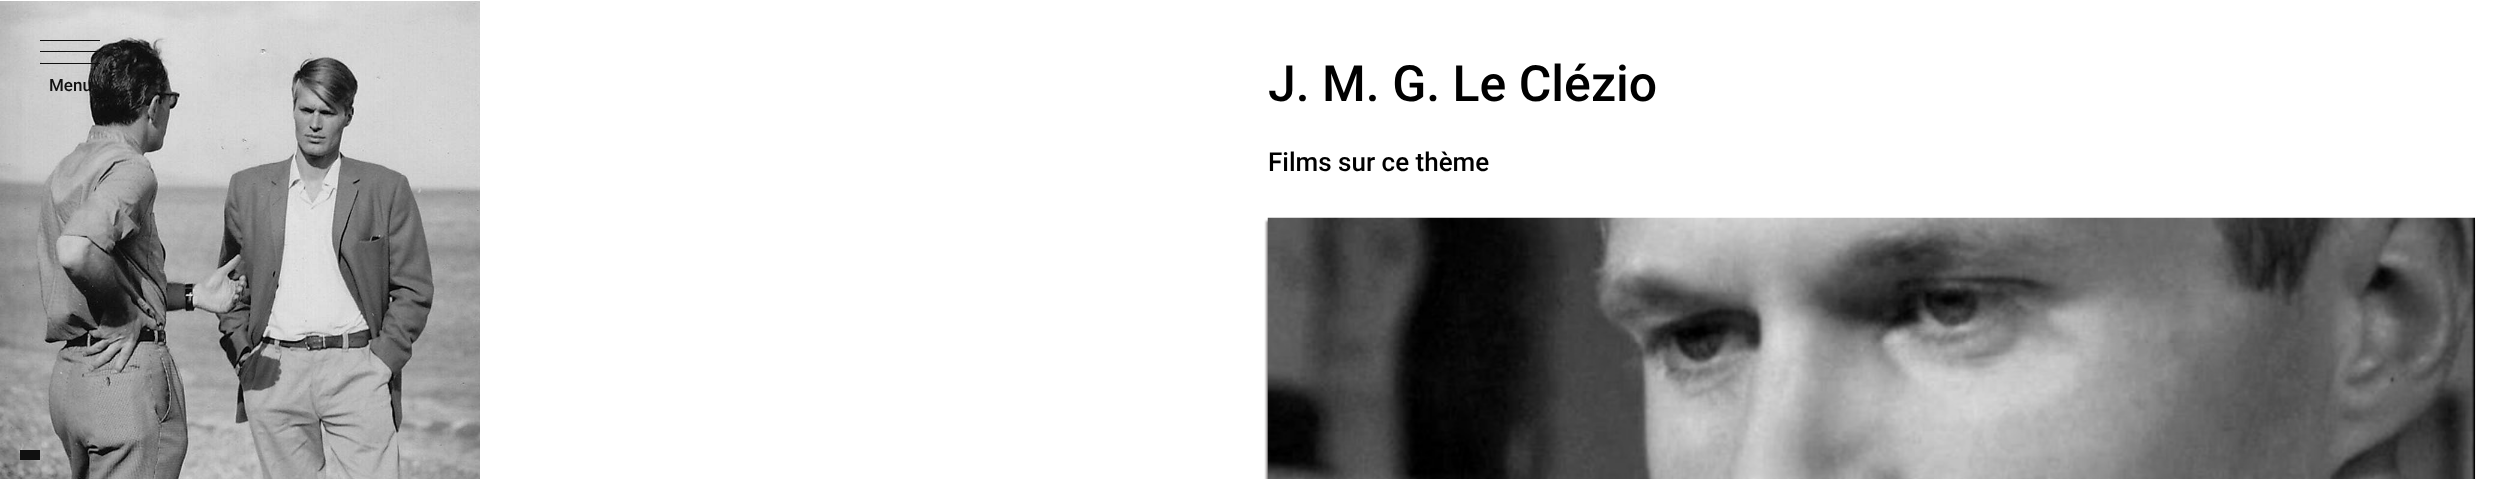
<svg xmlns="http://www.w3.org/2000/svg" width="2495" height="479">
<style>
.a{font:500 17px Roboto;fill:#101010}
.b{font:500 50px Roboto;fill:#000}
.c{font:500 26px Roboto;fill:#000}
</style>
<rect width="100%" height="100%" fill="#fff"/>
<image href="1.png" x="0" y="1" width="480" height="478"/>
<path fill="#101010" d="M40 40h60v1H40z"/>
<path fill="#0b0b0b" d="M40 40h1v1H40z"/>
<path fill="#101010" d="M40 51h60v1H40z"/>
<path fill="#0b0b0b" d="M40 51h1v1H40z"/>
<path fill="#101010" d="M40 63h60v1H40z"/>
<path fill="#0b0b0b" d="M40 63h1v1H40z"/>
<path fill="#101010" d="M20 450h20v10H20z"/>
<path fill="#969292" filter="blur(1px)" d="M1266 221h1208v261H1266z"/>
<image href="2.png" x="1267" y="217" width="1208" height="262"/>
<text class="a" x="49" y="91">Menu</text>
<text class="b" x="1268" y="101">J. M. G. Le Clézio</text>
<text class="c" x="1268" y="171">Films sur ce thème</text>
</svg>
